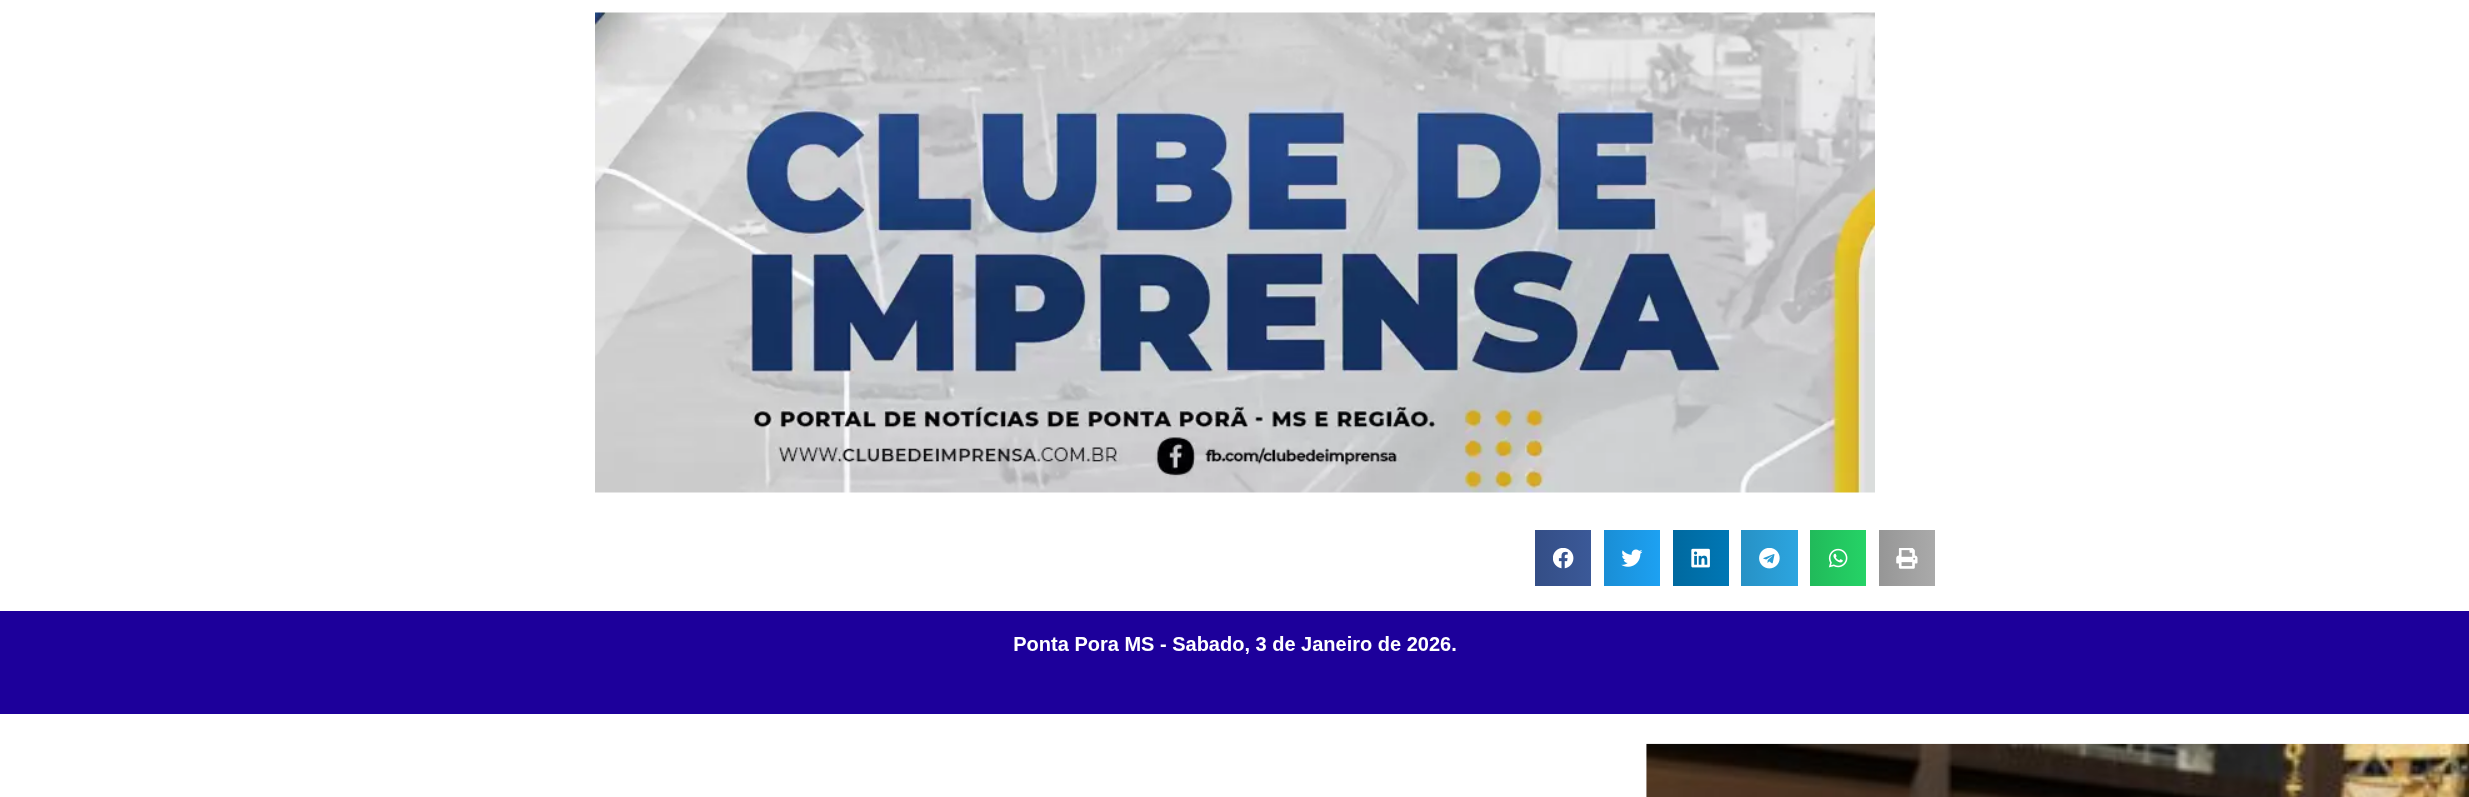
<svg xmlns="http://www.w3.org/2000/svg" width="2469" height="797">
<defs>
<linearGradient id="g1" gradientUnits="userSpaceOnUse" x1="1535" y1="558" x2="1591" y2="558"><stop offset="0" stop-color="#344e86"/><stop offset="1" stop-color="#3b5998"/></linearGradient>
<linearGradient id="g2" gradientUnits="userSpaceOnUse" x1="1604" y1="558" x2="1660" y2="558"><stop offset="0" stop-color="#1a8ed5"/><stop offset="1" stop-color="#1da1f2"/></linearGradient>
<linearGradient id="g3" gradientUnits="userSpaceOnUse" x1="1673" y1="558" x2="1729" y2="558"><stop offset="0" stop-color="#00699f"/><stop offset="1" stop-color="#0077b5"/></linearGradient>
<linearGradient id="g4" gradientUnits="userSpaceOnUse" x1="1741" y1="558" x2="1798" y2="558"><stop offset="0" stop-color="#2791c5"/><stop offset="1" stop-color="#2ca5e0"/></linearGradient>
<linearGradient id="g5" gradientUnits="userSpaceOnUse" x1="1810" y1="558" x2="1866" y2="558"><stop offset="0" stop-color="#21ba5a"/><stop offset="1" stop-color="#25d366"/></linearGradient>
<linearGradient id="g6" gradientUnits="userSpaceOnUse" x1="1879" y1="558" x2="1935" y2="558"><stop offset="0" stop-color="#969696"/><stop offset="1" stop-color="#aaa"/></linearGradient>
</defs>
<rect width="100%" height="100%" fill="#fff"/>
<image href="1.png" x="595" y="12" width="1280" height="481"/>
<path fill="url(#g1)" d="M1535 530h56v56H1535z"/>
<image href="2.png" x="1553" y="548" width="21" height="21"/>
<path fill="url(#g2)" d="M1604 530h56v56H1604z"/>
<image href="3.png" x="1621" y="549" width="22" height="18"/>
<path fill="url(#g3)" d="M1673 530h56v56H1673z"/>
<image href="4.png" x="1691" y="548" width="19" height="20"/>
<path fill="url(#g4)" d="M1741 530h57v56H1741z"/>
<image href="5.png" x="1759" y="548" width="21" height="21"/>
<path fill="url(#g5)" d="M1810 530h56v56H1810z"/>
<image href="6.png" x="1828" y="548" width="20" height="20"/>
<path fill="url(#g6)" d="M1879 530h56v56H1879z"/>
<image href="7.png" x="1896" y="548" width="22" height="21"/>
<path fill="#1d009b" d="M0 611h2469v103H0z"/>
<image href="8.png" x="1014" y="636" width="442" height="18"/>
<image href="9.png" x="1646" y="743" width="823" height="54"/>
</svg>
